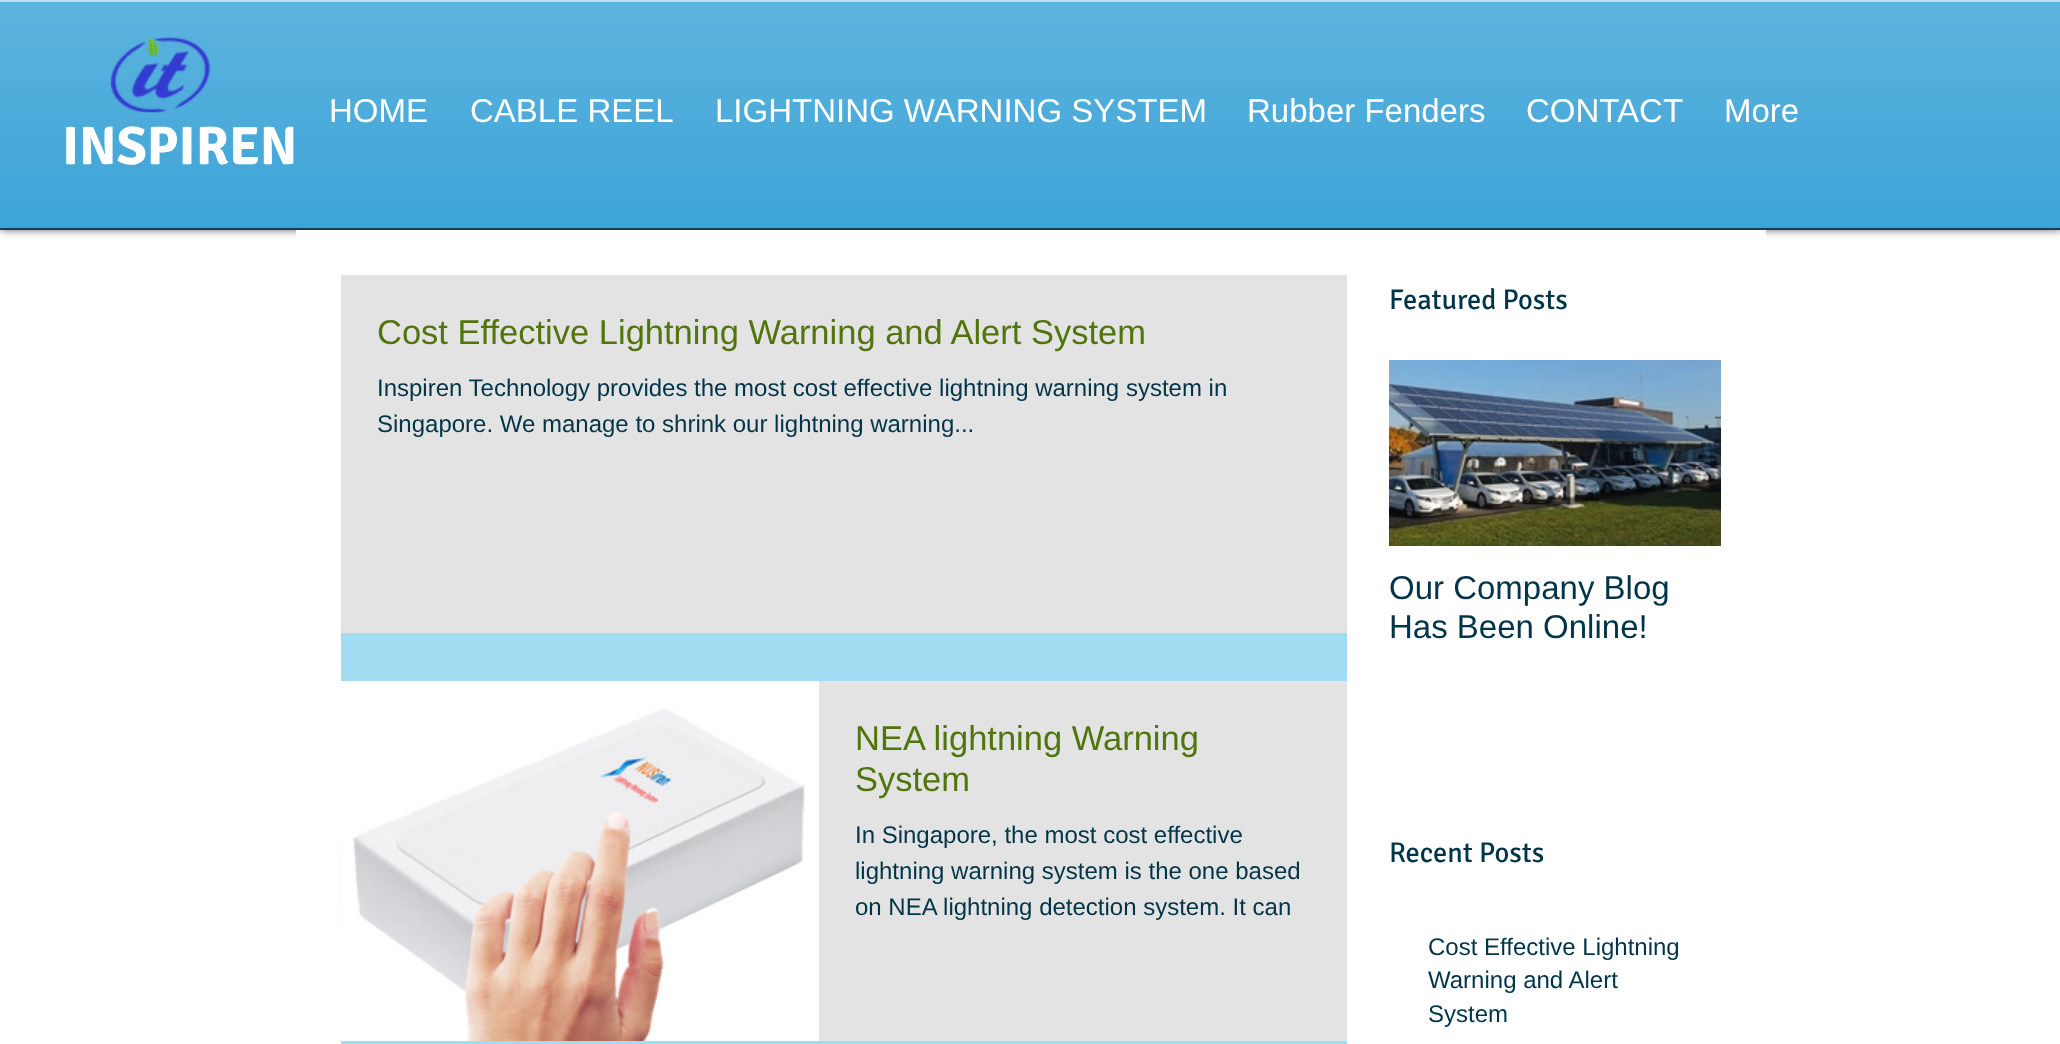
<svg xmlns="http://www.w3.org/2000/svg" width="2060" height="1044">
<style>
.a{font:33px Liberation Sans;fill:#fff}
.b{font:bold 54px Signika;fill:#fff}
.c{font:28.5px Signika;fill:#003448}
.d{font:34.5px Liberation Sans;fill:#50750c}
.e{font:24px Liberation Sans;fill:#003448}
.f{font:33px Liberation Sans;fill:#003448}
</style>
<defs>
<clipPath id="clip1"><path d="M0 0h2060v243h-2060zm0 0h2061v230h-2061z" clip-rule="evenodd"/></clipPath>
</defs>
<rect width="100%" height="100%" fill="#fff"/>
<g clip-path="url(#clip1)">
<path fill="#00000099" filter="blur(4px)" d="M0 0h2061v230H0z"/>
</g>
<path fill="#0088cbd9" d="M0 2h2060v228H0z"/>
<image href="1.png" x="0" y="2" width="2060" height="228"/>
<path fill="#00000099" d="M0 228h2060v2H0z"/>
<path fill="#bfe1f2" d="M0 0h2060v2H0z"/>
<image href="2.png" x="110" y="37" width="101" height="76"/>
<path fill="#fff" d="M296 230h1470v8H296z"/>
<path fill="#a1dcf2" d="M341 633h1006v411H341z"/>
<path fill="#e3e3e3" d="M341 275h1006v358H341z"/>
<image href="3.png" x="340" y="681" width="1" height="360"/>
<image href="4.png" x="341" y="681" width="478" height="360"/>
<path fill="#e3e3e3" d="M819 681h528v360H819z"/>
<image href="5.png" x="1389" y="360" width="332" height="186"/>
<text class="a" x="329" y="122">HOME</text>
<text class="a" x="470" y="122">CABLE REEL</text>
<text class="a" x="715" y="122">LIGHTNING WARNING SYSTEM</text>
<text class="a" x="1247" y="122">Rubber Fenders</text>
<text class="a" x="1526" y="122">CONTACT</text>
<text class="a" x="1724" y="122">More</text>
<text class="b" x="62" y="164">INSPIREN</text>
<text class="c" x="1389" y="309">Featured Posts</text>
<text class="d" x="377" y="344">Cost Effective Lightning Warning and Alert System</text>
<text class="e" x="377" y="396">Inspiren Technology provides the most cost effective lightning warning system in</text>
<text class="e" x="377" y="432">Singapore. We manage to shrink our lightning warning...</text>
<text class="d" x="855" y="750">NEA lightning Warning</text>
<text class="d" x="855" y="791">System</text>
<text class="e" x="855" y="843">In Singapore, the most cost effective</text>
<text class="e" x="855" y="879">lightning warning system is the one based</text>
<text class="e" x="855" y="915">on NEA lightning detection system. It can</text>
<text class="f" x="1389" y="599">Our Company Blog</text>
<text class="f" x="1389" y="638">Has Been Online!</text>
<text class="c" x="1389" y="862">Recent Posts</text>
<text class="e" x="1428" y="955">Cost Effective Lightning</text>
<text class="e" x="1428" y="988">Warning and Alert</text>
<text class="e" x="1428" y="1022">System</text>
</svg>
